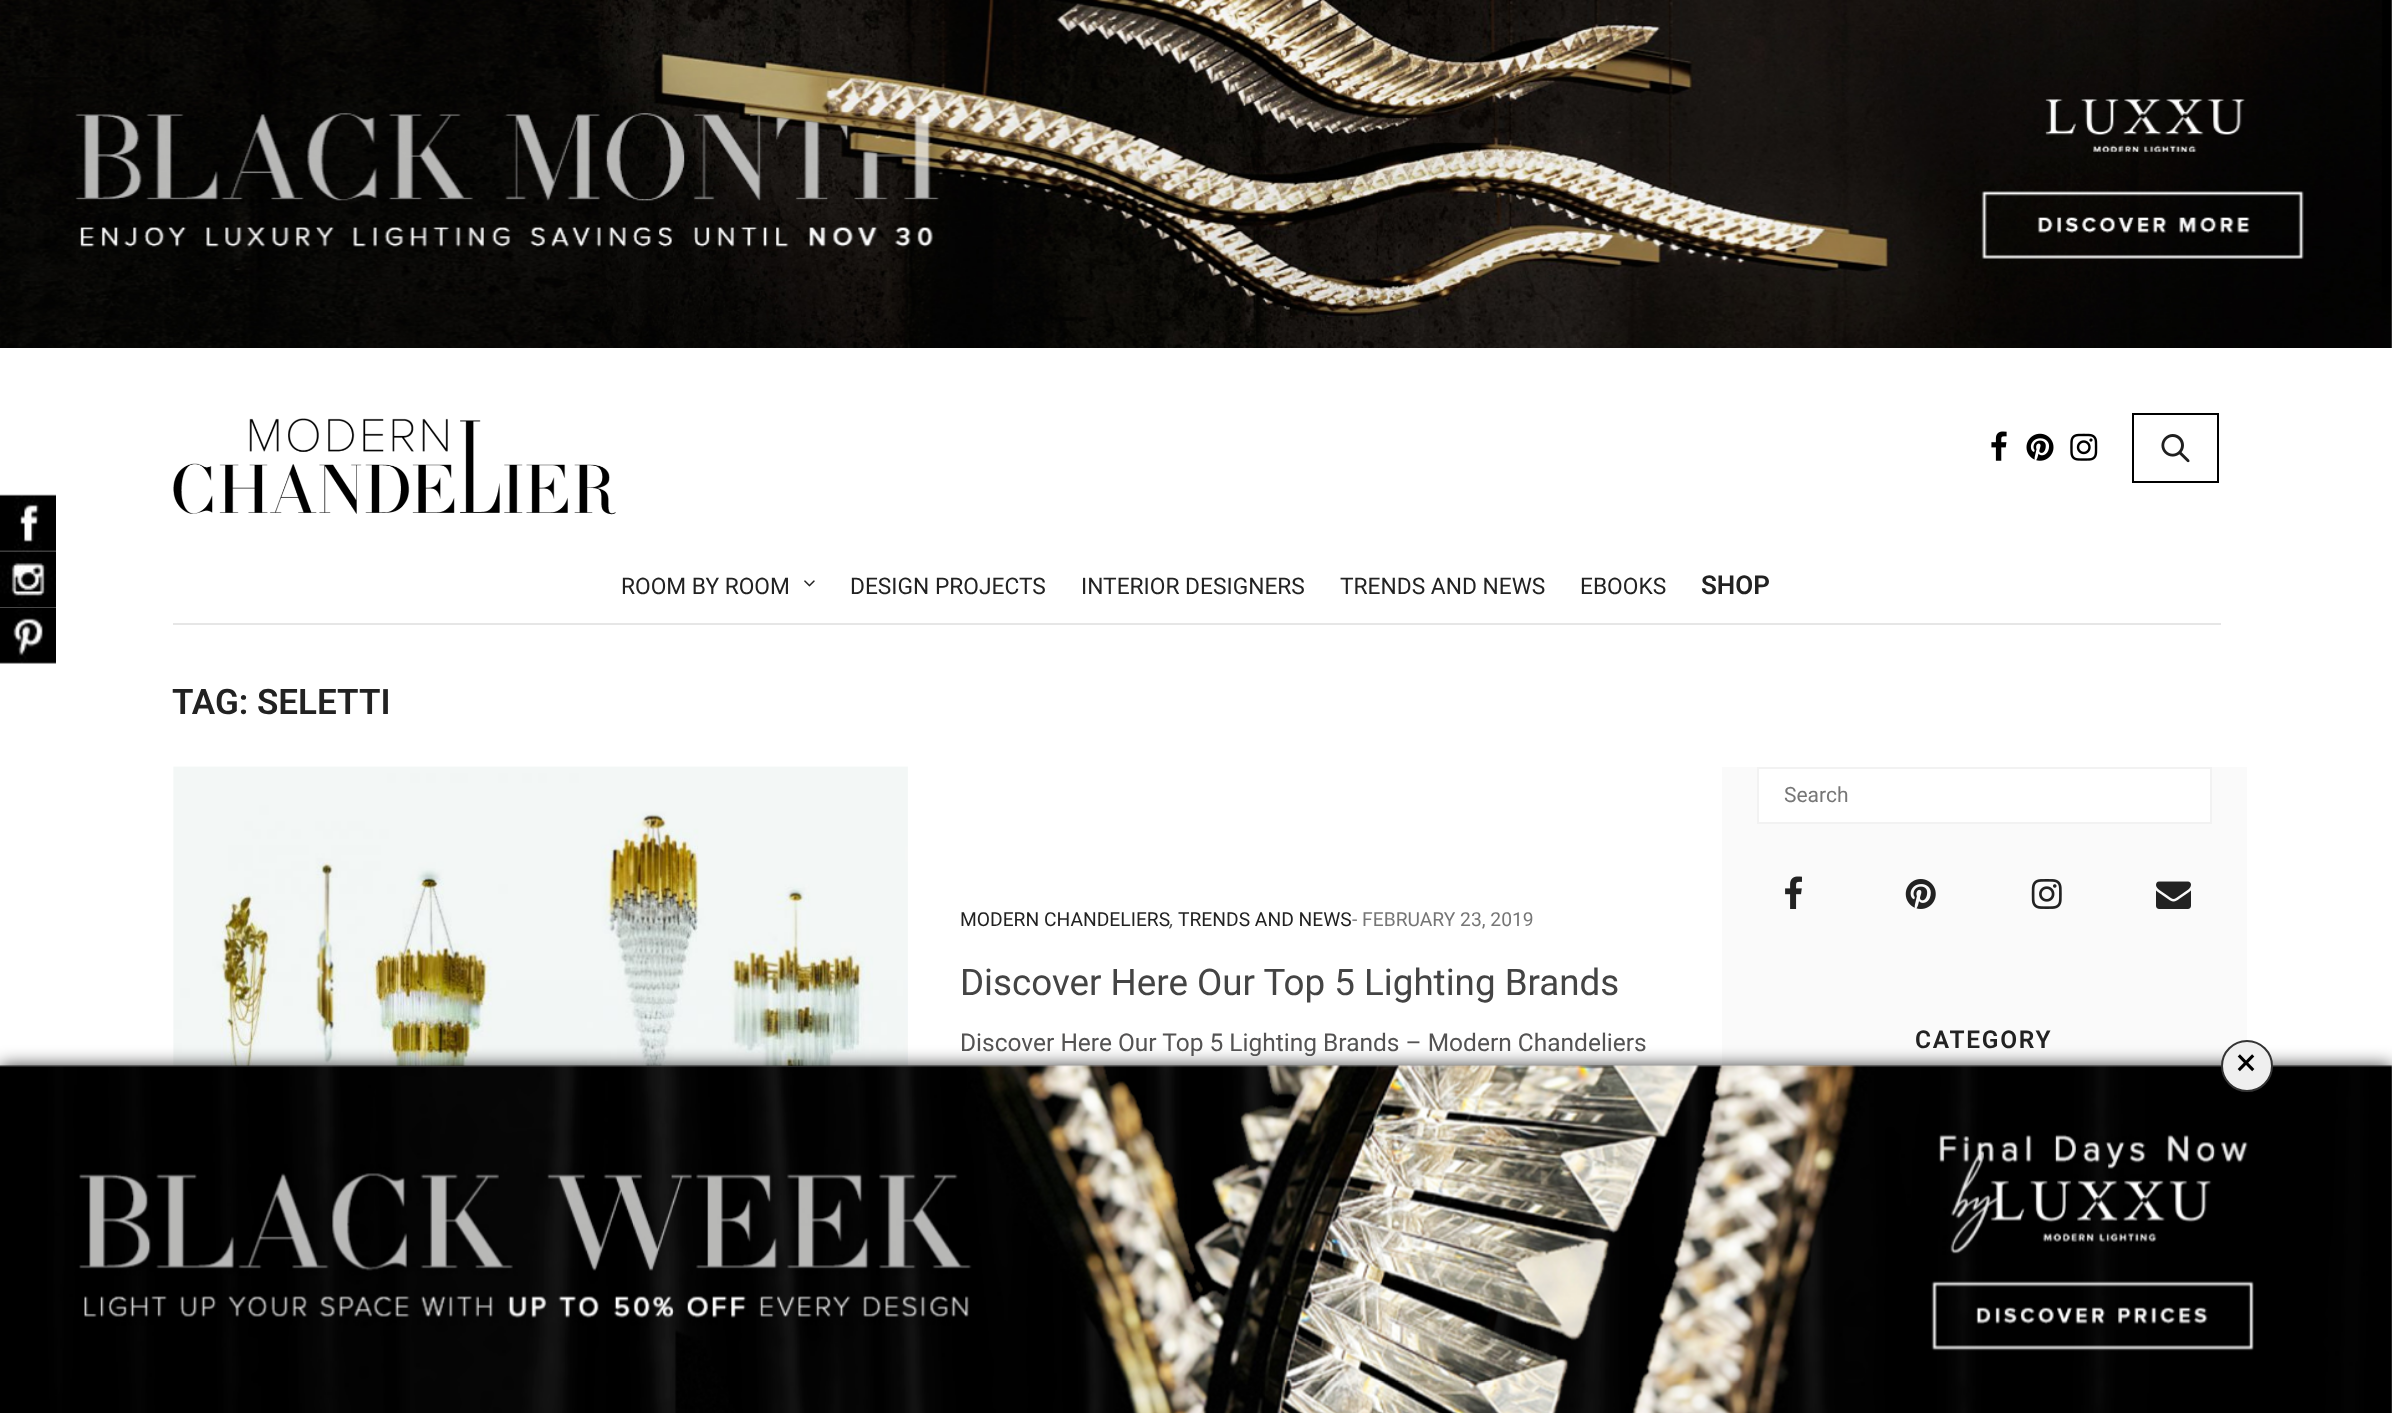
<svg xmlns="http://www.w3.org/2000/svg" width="2392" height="1413">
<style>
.a{font:22.75px Roboto;fill:#222}
.b{font:600 26px Roboto;fill:#222}
.c{font:600 35px Roboto;fill:#222}
.d{font:19.25px Roboto;fill:#222}
.e{font:italic 19.25px Roboto;fill:#545353}
.f{font:19.25px Roboto;fill:#767676}
.g{font:36.75px Roboto;fill:#444}
.h{font:24.5px Roboto;fill:#545353}
.i{font:21px Roboto;fill:#767676}
.j{font:600 24.5px Roboto;letter-spacing:1.75px;fill:#222}
.k{font:38px Roboto;fill:#000}
</style>
<rect width="100%" height="100%" fill="#fff"/>
<image href="1.png" x="0" y="0" width="2392" height="348"/>
<image href="2.png" x="0" y="494" width="56" height="58"/>
<image href="3.png" x="0" y="551" width="56" height="57"/>
<image href="4.png" x="0" y="607" width="56" height="57"/>
<path fill="#e6e6e6" d="M173 623h2048v2H173z"/>
<image href="5.png" x="173" y="418" width="443" height="97"/>
<image href="6.png" x="1991" y="431" width="16" height="30"/>
<image href="7.png" x="2026" y="433" width="28" height="28"/>
<image href="8.png" x="2070" y="433" width="28" height="28"/>
<path fill="none" stroke="#000" stroke-width="2" d="M2133 414h85v68H2133z"/>
<image href="9.png" x="2161" y="434" width="29" height="29"/>
<image href="10.png" x="804" y="580" width="11" height="7"/>
<image href="11.png" x="173" y="766" width="735" height="300"/>
<path fill="#fafafa" d="M1722 767h525v299H1722z"/>
<path fill="#fff" stroke="#f2f2f2" stroke-width="2" d="M1758 768h453v55H1758z"/>
<image href="12.png" x="1785" y="876" width="17" height="33"/>
<image href="13.png" x="1905" y="879" width="31" height="30"/>
<image href="14.png" x="2031" y="879" width="31" height="30"/>
<image href="15.png" x="2156" y="881" width="35" height="28"/>
<path fill="#000000cc" filter="blur(9px)" d="M0 1066h2392v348H0z"/>
<path fill="#ccc" d="M0 1066h2392v347H0z"/>
<image href="16.png" x="0" y="1065" width="2392" height="348"/>
<circle fill="#efefef" stroke="#333" stroke-width="2" cx="2247" cy="1066" r="25"/>
<text class="a" x="621" y="594">ROOM BY ROOM</text>
<text class="a" x="850" y="594">DESIGN PROJECTS</text>
<text class="a" x="1081" y="594">INTERIOR DESIGNERS</text>
<text class="a" x="1340" y="594">TRENDS AND NEWS</text>
<text class="a" x="1580" y="594">EBOOKS</text>
<text class="b" x="1701" y="594">SHOP</text>
<text class="c" x="172" y="714">TAG: SELETTI</text>
<text class="d" x="960" y="926">MODERN CHANDELIERS</text>
<text class="e" x="1170" y="926">,</text>
<text class="d" x="1178" y="926">TRENDS AND NEWS</text>
<text class="f" x="1352" y="926">- FEBRUARY 23, 2019</text>
<text class="g" x="960" y="995">Discover Here Our Top 5 Lighting Brands</text>
<text class="h" x="960" y="1051">Discover Here Our Top 5 Lighting Brands – Modern Chandeliers</text>
<text class="i" x="1784" y="802">Search</text>
<text class="j" x="1915" y="1048">CATEGORY</text>
<text class="k" x="2236" y="1075">×</text>
</svg>
